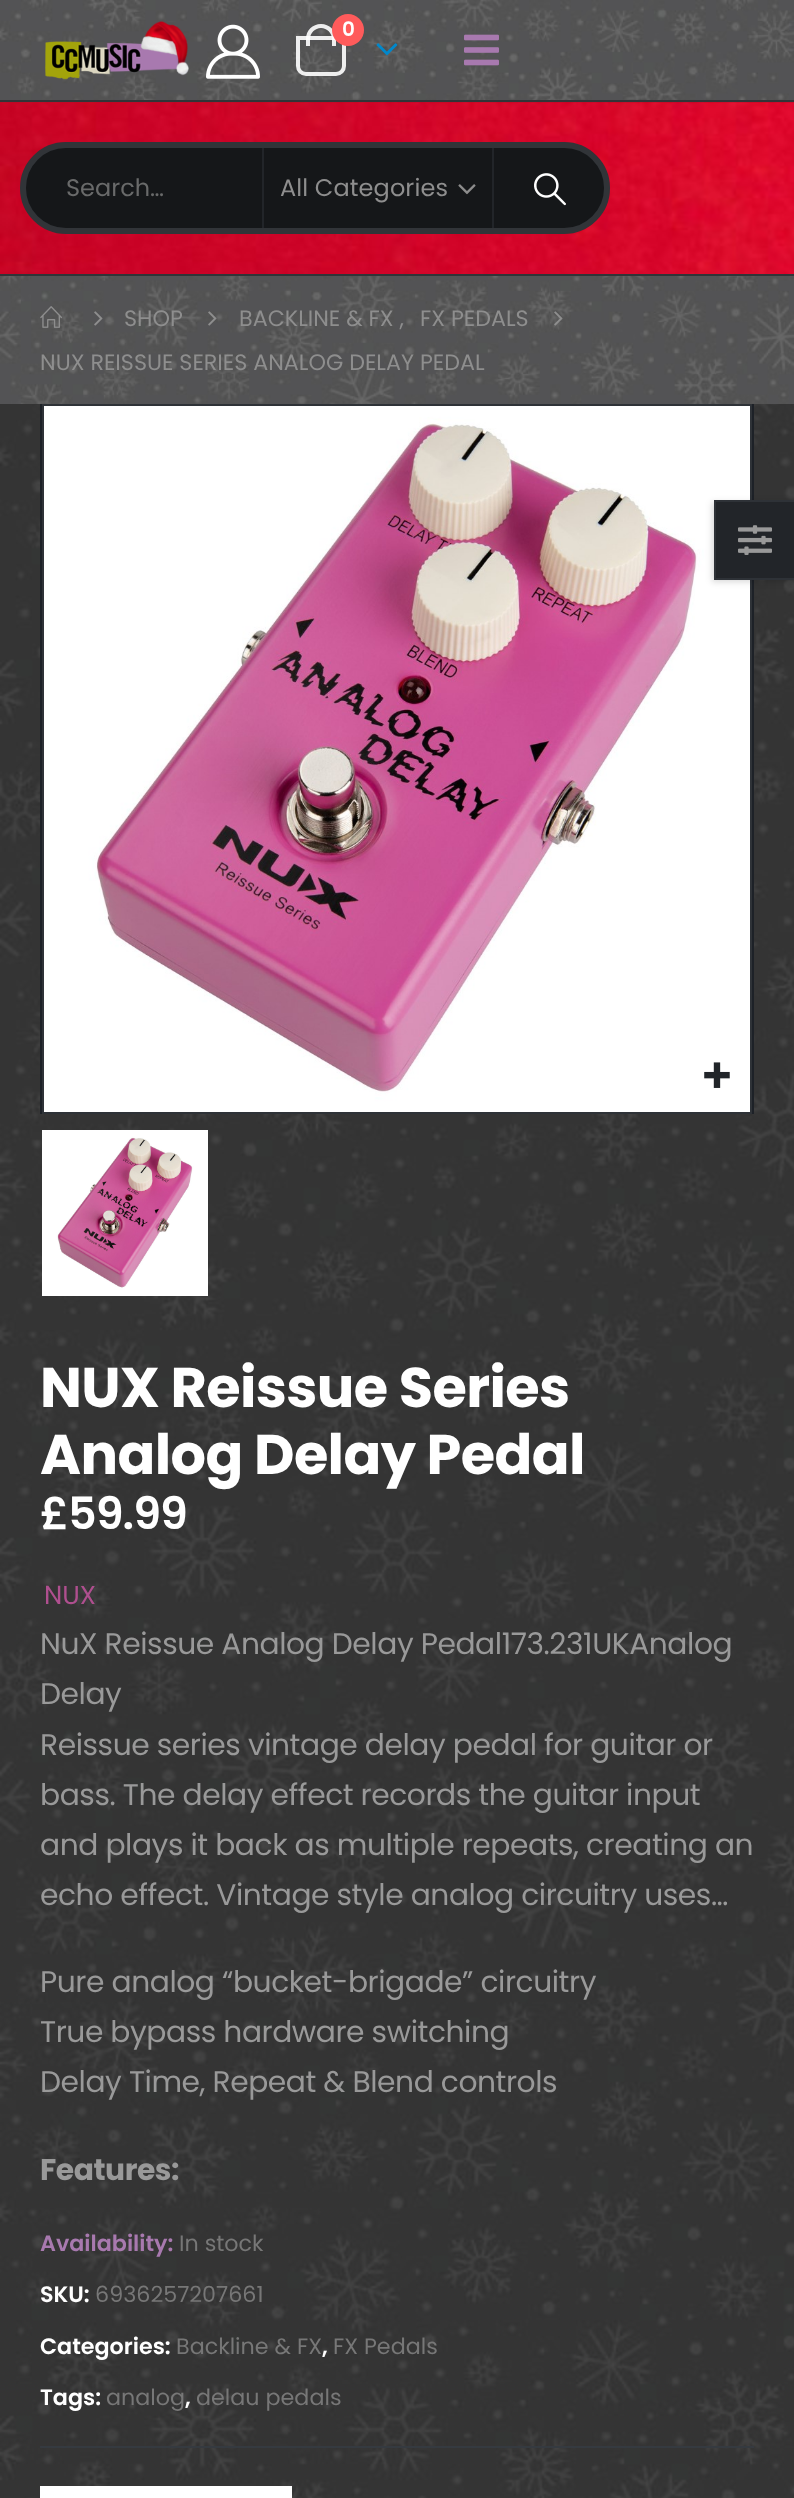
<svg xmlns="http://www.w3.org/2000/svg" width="794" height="2498">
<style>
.a{font:600 20px Poppins;letter-spacing:1px;fill:#fff}
.b{font:24px Poppins;fill:#696a6a}
.c{font:24px Poppins;letter-spacing:0.1px;fill:#8e8e8e}
.d{font:22.25px Poppins;fill:#8e8e8e}
.e{font:bold 55.75px Poppins;letter-spacing:-0.6px;fill:#fff}
.f{font:600 44.5px Poppins;letter-spacing:-1px;fill:#fff}
.g{font:26px Poppins;fill:#af4f8f}
.h{font:29.75px Poppins;letter-spacing:-0.45px;fill:#999}
.i{font:bold 29.75px Poppins;letter-spacing:-0.45px;fill:#999}
.j{font:600 22.25px Poppins;fill:#a879af}
.k{font:22.25px Poppins;fill:#777}
.l{font:600 22.25px Poppins;fill:#fff}
</style>
<rect width="100%" height="100%" fill="#fff"/>
<image href="1.png" x="0" y="0" width="794" height="404"/>
<path fill="#313438" d="M0 274h794v2H0z"/>
<image href="2.png" x="45" y="21" width="144" height="59"/>
<image href="3.png" x="206" y="24" width="54" height="55"/>
<path fill="none" stroke="#ffffffe6" stroke-width="4" d="M298 38h46v28c0 4.5-3.5 8-8 8h-30c-4.5 0-8-3.5-8-8z"/>
<path fill="#ffffffe6" fill-rule="evenodd" d="M321 24c8.5 0 15 6.5 15 15v7h-30v-7c0-8.5 6.5-15 15-15zm0 4c6 0 11 5 11 11v7h-22v-7c0-6 5-11 11-11z"/>
<circle fill="#ff5b5b" cx="348" cy="30" r="16"/>
<image href="4.png" x="376" y="43" width="22" height="13"/>
<image href="5.png" x="464" y="34" width="35" height="32"/>
<image href="6.png" x="0" y="102" width="794" height="172"/>
<path fill="#313438" d="M0 100h794v2H0z"/>
<rect fill="#151719" stroke="#313438" stroke-width="6" x="23" y="145" width="584" height="86" rx="43"/>
<path fill="#222529" d="M492 148h2v80H492z"/>
<path fill="#222529" d="M262 148h2v80H262z"/>
<image href="7.png" x="458" y="184" width="18" height="11"/>
<image href="8.png" x="534" y="173" width="32" height="33"/>
<image href="9.png" x="40" y="306" width="22" height="22"/>
<image href="10.png" x="94" y="311" width="9" height="15"/>
<image href="11.png" x="208" y="311" width="9" height="15"/>
<image href="12.png" x="554" y="311" width="9" height="15"/>
<image href="13.png" x="0" y="404" width="794" height="2094"/>
<path fill="#1d2127" d="M40 404h714v710H40z"/>
<path fill="none" stroke="#2e3237" stroke-width="2" d="M43 405h708v708H43z"/>
<image href="15.png" x="44" y="406" width="706" height="706"/>
<path fill="#00000026" filter="blur(3px)" d="M712 502h80v80H712z"/>
<path fill="#222529" d="M716 502h78v76H716z"/>
<path fill="#2e3237" d="M714 500h80v2H714z"/>
<path fill="#2e3237" d="M714 578h80v2H714z"/>
<path fill="#2e3237" d="M714 500h2v80H714z"/>
<image href="14.png" x="738" y="525" width="34" height="30"/>
<image href="16.png" x="704" y="1062" width="26" height="26"/>
<path fill="none" stroke="#fff" stroke-width="4" d="M44 1132h162v162H44z"/>
<image href="17.png" x="46" y="1134" width="158" height="158"/>
<path fill="#353a40" d="M40 2446h714v2H40z"/>
<path fill="#fff" d="M40 2486h252v12H40z"/>
<text class="a" x="342" y="36">0</text>
<text class="b" x="66" y="196">Search…</text>
<text class="c" x="280" y="196">All Categories</text>
<text class="d" x="124" y="326">SHOP</text>
<text class="d" x="239" y="326">BACKLINE &amp; FX ,</text>
<text class="d" x="420" y="326">FX PEDALS</text>
<text class="d" x="40" y="370">NUX REISSUE SERIES ANALOG DELAY PEDAL</text>
<text class="e" x="40" y="1407">NUX Reissue Series</text>
<text class="e" x="40" y="1474">Analog Delay Pedal</text>
<text class="f" x="40" y="1529">£59.99</text>
<text class="g" x="44" y="1604">NUX</text>
<text class="h" x="40" y="1654">NuX Reissue Analog Delay Pedal173.231UKAnalog</text>
<text class="h" x="40" y="1704">Delay</text>
<text class="h" x="40" y="1755">Reissue series vintage delay pedal for guitar or</text>
<text class="h" x="40" y="1805">bass. The delay effect records the guitar input</text>
<text class="h" x="40" y="1855">and plays it back as multiple repeats, creating an</text>
<text class="h" x="40" y="1905">echo effect. Vintage style analog circuitry uses…</text>
<text class="h" x="40" y="1992">Pure analog “bucket-brigade” circuitry</text>
<text class="h" x="40" y="2042">True bypass hardware switching</text>
<text class="h" x="40" y="2092">Delay Time, Repeat &amp; Blend controls</text>
<text class="i" x="40" y="2180">Features:</text>
<text class="j" x="40" y="2251">Availability:</text>
<text class="k" x="179" y="2251">In stock</text>
<text class="l" x="40" y="2302">SKU:</text>
<text class="k" x="95" y="2302">6936257207661</text>
<text class="l" x="40" y="2354">Categories:</text>
<text class="k" x="176" y="2354">Backline &amp; FX</text>
<text class="l" x="322" y="2354">,</text>
<text class="k" x="333" y="2354">FX Pedals</text>
<text class="l" x="40" y="2405">Tags:</text>
<text class="k" x="106" y="2405">analog</text>
<text class="l" x="185" y="2405">,</text>
<text class="k" x="196" y="2405">delau pedals</text>
</svg>
